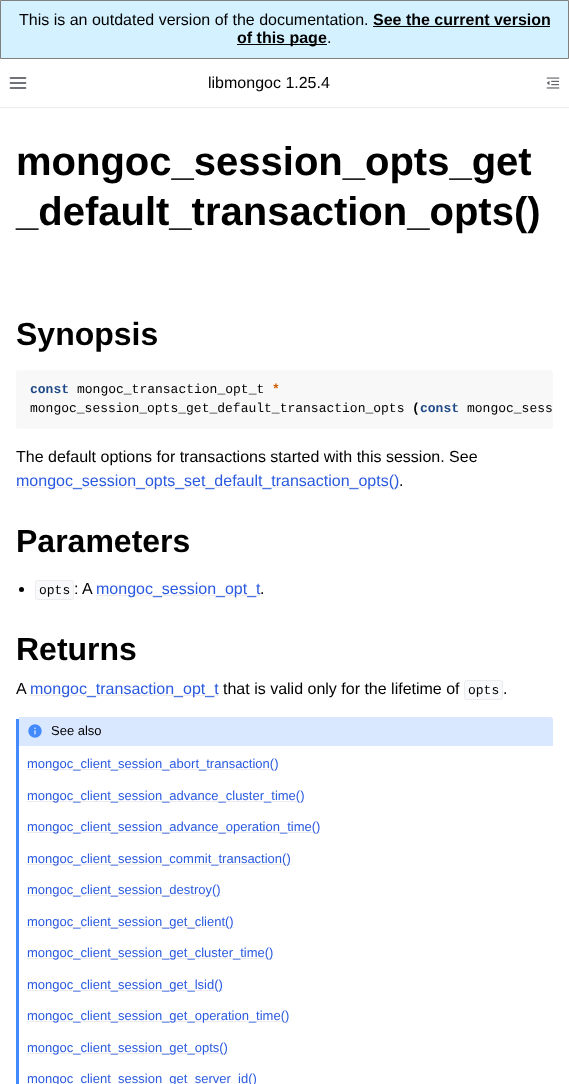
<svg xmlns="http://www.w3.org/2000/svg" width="569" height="1084">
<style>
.a{font:16px Liberation Sans;fill:#000}
.b{font:bold 16px Liberation Sans;fill:#000}
.c{font:bold 40px Liberation Sans;fill:#000}
.d{font:bold 32px Liberation Sans;fill:#000}
.e{font:bold 13px Liberation Mono;fill:#204a87}
.f{font:13px Liberation Mono;fill:#000}
.g{font:bold 13px Liberation Mono;fill:#ce5c00}
.h{font:bold 13px Liberation Mono;fill:#000}
.i{font:16px Liberation Sans;fill:#2a5adf}
.j{font:13px Liberation Sans;fill:#000}
.k{font:13px Liberation Sans;fill:#2a5adf}
</style>
<rect width="100%" height="100%" fill="#fff"/>
<path fill="#d4f1ff" stroke="#808080" d="M0.5 0.5h568v58H0.5z"/>
<path fill="#000" d="M373 26h177v1H373z"/>
<path fill="#000" d="M237 44h90v1H237z"/>
<path fill="#eeebee" d="M0 107h569v1H0z"/>
<image href="1.png" x="9" y="77" width="18" height="12"/>
<image href="2.png" x="546" y="77" width="14" height="12"/>
<rect fill="#f8f8f8" x="16" y="370" width="537" height="59" rx="3"/>
<path fill="#eeebee" d="M16 487h383v1H16z"/>
<circle fill="#000" cx="21.5" cy="589.5" r="2.5"/>
<rect fill="#f8f9fb" stroke="#eeebee" x="35.5" y="580.5" width="38" height="19" rx="2"/>
<path fill="#eeebee" d="M96 595h164v1H96z"/>
<path fill="#eeebee" d="M30 695h189v1H30z"/>
<rect fill="#f8f9fb" stroke="#eeebee" x="464.5" y="680.5" width="38" height="19" rx="2"/>
<path fill="#448aff" d="M16 719h3v365H16z"/>
<path fill="#448aff33" d="M19 717v29h534v-26c0-2-1-3-3-3z"/>
<image href="3.png" x="28" y="724" width="14" height="14"/>
<path fill="#eeebee" d="M27 769h251v1H27z"/>
<path fill="#eeebee" d="M27 801h277v1H27z"/>
<path fill="#eeebee" d="M27 832h293v1H27z"/>
<path fill="#eeebee" d="M27 864h264v1H27z"/>
<path fill="#eeebee" d="M27 895h194v1H27z"/>
<path fill="#eeebee" d="M27 927h207v1H27z"/>
<path fill="#eeebee" d="M27 958h246v1H27z"/>
<path fill="#eeebee" d="M27 990h196v1H27z"/>
<path fill="#eeebee" d="M27 1021h262v1H27z"/>
<path fill="#eeebee" d="M27 1053h201v1H27z"/>
<text class="a" x="19" y="25">This is an outdated version of the documentation.</text>
<text class="b" x="373" y="25">See the current version</text>
<text class="b" x="237" y="43">of this page</text>
<text class="a" x="327" y="43">.</text>
<text class="a" x="208" y="88">libmongoc 1.25.4</text>
<text class="c" x="16" y="175">mongoc_session_opts_get</text>
<text class="c" x="16" y="225">_default_transaction_opts()</text>
<text class="d" x="16" y="345">Synopsis</text>
<text class="e" x="30" y="393">const</text>
<text class="f" x="77" y="393">mongoc_transaction_opt_t</text>
<text class="g" x="272" y="393">*</text>
<text class="f" x="30" y="412">mongoc_session_opts_get_default_transaction_opts</text>
<text class="h" x="412" y="412">(</text>
<text class="e" x="420" y="412">const</text>
<text class="f" x="467" y="412">mongoc_sess</text>
<text class="a" x="16" y="462">The default options for transactions started with this session. See</text>
<text class="i" x="16" y="486">mongoc_session_opts_set_default_transaction_opts()</text>
<text class="a" x="399" y="486">.</text>
<text class="d" x="16" y="552">Parameters</text>
<text class="f" x="39" y="594">opts</text>
<text class="a" x="74" y="594">: A</text>
<text class="i" x="96" y="594">mongoc_session_opt_t</text>
<text class="a" x="260" y="594">.</text>
<text class="d" x="16" y="660">Returns</text>
<text class="a" x="16" y="694">A</text>
<text class="i" x="30" y="694">mongoc_transaction_opt_t</text>
<text class="a" x="223" y="694">that is valid only for the lifetime of</text>
<text class="f" x="468" y="694">opts</text>
<text class="a" x="503" y="694">.</text>
<text class="j" x="51" y="735">See also</text>
<text class="k" x="27" y="768">mongoc_client_session_abort_transaction()</text>
<text class="k" x="27" y="800">mongoc_client_session_advance_cluster_time()</text>
<text class="k" x="27" y="831">mongoc_client_session_advance_operation_time()</text>
<text class="k" x="27" y="863">mongoc_client_session_commit_transaction()</text>
<text class="k" x="27" y="894">mongoc_client_session_destroy()</text>
<text class="k" x="27" y="926">mongoc_client_session_get_client()</text>
<text class="k" x="27" y="957">mongoc_client_session_get_cluster_time()</text>
<text class="k" x="27" y="989">mongoc_client_session_get_lsid()</text>
<text class="k" x="27" y="1020">mongoc_client_session_get_operation_time()</text>
<text class="k" x="27" y="1052">mongoc_client_session_get_opts()</text>
<text class="k" x="27" y="1083">mongoc_client_session_get_server_id()</text>
</svg>
